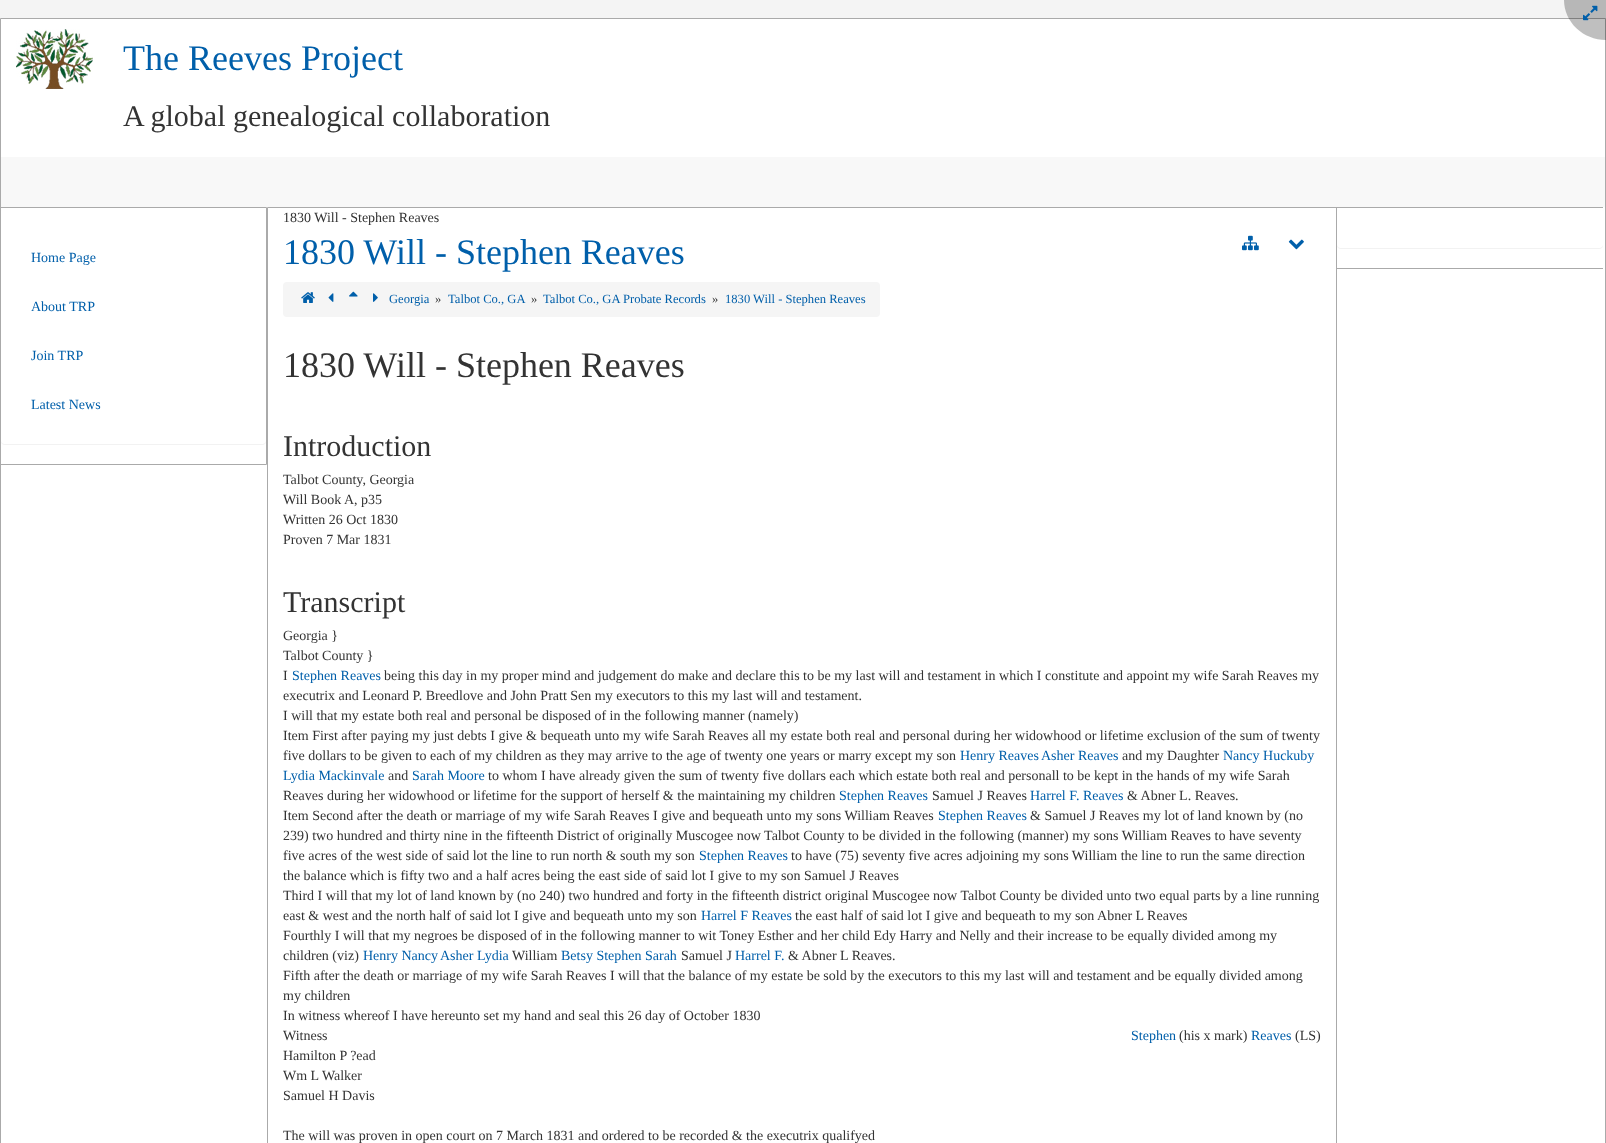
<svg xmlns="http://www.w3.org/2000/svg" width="1606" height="1143">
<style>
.a{font:36px Liberation Serif;fill:#005faa}
.b{font:30px Liberation Serif;fill:#333}
.c{font:14px Liberation Serif;fill:#005faa}
.d{font:14px Liberation Serif;fill:#333}
.e{font:12.6px Liberation Serif;fill:#005faa}
.f{font:12.6px Liberation Serif;fill:#333}
.g{font:36px Liberation Serif;fill:#333}
</style>
<rect width="100%" height="100%" fill="#f4f4f4"/>
<path fill="#fff" stroke="#aaa" d="M0.5 18.5h1605v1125H0.5z"/>
<path fill="#00000040" d="M1564 0h42v40c-23 0-42-18-42-40z"/>
<image href="1.png" x="1583" y="5" width="15" height="16"/>
<image href="2.png" x="16" y="29" width="77" height="60"/>
<path fill="#f8f8f8" d="M1 157h1604v50H1z"/>
<path fill="none" stroke="#aaa" d="M0.5 207.5h266v257H0.5z"/>
<rect fill="#0000000d" filter="blur(0.5px)" x="1" y="209" width="265" height="236" rx="4"/>
<rect fill="#fff" x="1" y="208" width="265" height="236" rx="4"/>
<path fill="#aaa" d="M1336 207h267v1H1336z"/>
<path fill="#aaa" d="M1336 268h267v1H1336z"/>
<rect fill="#0000000d" filter="blur(0.5px)" x="1337" y="209" width="266" height="40" rx="4"/>
<path fill="none" stroke="#aaa" d="M267.5 207.5h1069v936H267.5z"/>
<image href="3.png" x="1242" y="235" width="17" height="16"/>
<image href="4.png" x="1288" y="239" width="16" height="11"/>
<rect fill="#f5f5f5" x="283" y="282" width="597" height="35" rx="4"/>
<image href="5.png" x="301" y="292" width="14" height="11"/>
<image href="6.png" x="328" y="293" width="6" height="9"/>
<image href="7.png" x="349" y="291" width="9" height="6"/>
<image href="8.png" x="373" y="293" width="5" height="9"/>
<rect fill="#fff" x="1337" y="208" width="266" height="40" rx="4"/>
<text class="a" x="123" y="70">The Reeves Project</text>
<text class="b" x="123" y="126">A global genealogical collaboration</text>
<text class="c" x="31" y="262">Home Page</text>
<text class="c" x="31" y="311">About TRP</text>
<text class="c" x="31" y="360">Join TRP</text>
<text class="c" x="31" y="409">Latest News</text>
<text class="d" x="283" y="222">1830 Will - Stephen Reaves</text>
<text class="a" x="283" y="264">1830 Will - Stephen Reaves</text>
<text class="e" x="389" y="303">Georgia</text>
<text class="f" x="435" y="303">»</text>
<text class="e" x="448" y="303">Talbot Co., GA</text>
<text class="f" x="531" y="303">»</text>
<text class="e" x="543" y="303">Talbot Co., GA Probate Records</text>
<text class="f" x="712" y="303">»</text>
<text class="e" x="725" y="303">1830 Will - Stephen Reaves</text>
<text class="g" x="283" y="377">1830 Will - Stephen Reaves</text>
<text class="b" x="283" y="456">Introduction</text>
<text class="d" x="283" y="484">Talbot County, Georgia</text>
<text class="d" x="283" y="504">Will Book A, p35</text>
<text class="d" x="283" y="524">Written 26 Oct 1830</text>
<text class="d" x="283" y="544">Proven 7 Mar 1831</text>
<text class="b" x="283" y="612">Transcript</text>
<text class="d" x="283" y="640">Georgia }</text>
<text class="d" x="283" y="660">Talbot County }</text>
<text class="d" x="283" y="680">I</text>
<text class="c" x="292" y="680">Stephen Reaves</text>
<text class="d" x="384" y="680">being this day in my proper mind and judgement do make and declare this to be my last will and testament in which I constitute and appoint my wife Sarah Reaves my</text>
<text class="d" x="283" y="700">executrix and Leonard P. Breedlove and John Pratt Sen my executors to this my last will and testament.</text>
<text class="d" x="283" y="720">I will that my estate both real and personal be disposed of in the following manner (namely)</text>
<text class="d" x="283" y="740">Item First after paying my just debts I give &amp; bequeath unto my wife Sarah Reaves all my estate both real and personal during her widowhood or lifetime exclusion of the sum of twenty</text>
<text class="d" x="283" y="760">five dollars to be given to each of my children as they may arrive to the age of twenty one years or marry except my son</text>
<text class="c" x="960" y="760">Henry Reaves</text>
<text class="c" x="1041" y="760">Asher Reaves</text>
<text class="d" x="1122" y="760">and my Daughter</text>
<text class="c" x="1223" y="760">Nancy Huckuby</text>
<text class="c" x="283" y="780">Lydia Mackinvale</text>
<text class="d" x="388" y="780">and</text>
<text class="c" x="412" y="780">Sarah Moore</text>
<text class="d" x="488" y="780">to whom I have already given the sum of twenty five dollars each which estate both real and personall to be kept in the hands of my wife Sarah</text>
<text class="d" x="283" y="800">Reaves during her widowhood or lifetime for the support of herself &amp; the maintaining my children</text>
<text class="c" x="839" y="800">Stephen Reaves</text>
<text class="d" x="932" y="800">Samuel J Reaves</text>
<text class="c" x="1030" y="800">Harrel F. Reaves</text>
<text class="d" x="1127" y="800">&amp; Abner L. Reaves.</text>
<text class="d" x="283" y="820">Item Second after the death or marriage of my wife Sarah Reaves I give and bequeath unto my sons William Reaves</text>
<text class="c" x="938" y="820">Stephen Reaves</text>
<text class="d" x="1030" y="820">&amp; Samuel J Reaves my lot of land known by (no</text>
<text class="d" x="283" y="840">239) two hundred and thirty nine in the fifteenth District of originally Muscogee now Talbot County to be divided in the following (manner) my sons William Reaves to have seventy</text>
<text class="d" x="283" y="860">five acres of the west side of said lot the line to run north &amp; south my son</text>
<text class="c" x="699" y="860">Stephen Reaves</text>
<text class="d" x="791" y="860">to have (75) seventy five acres adjoining my sons William the line to run the same direction</text>
<text class="d" x="283" y="880">the balance which is fifty two and a half acres being the east side of said lot I give to my son Samuel J Reaves</text>
<text class="d" x="283" y="900">Third I will that my lot of land known by (no 240) two hundred and forty in the fifteenth district original Muscogee now Talbot County be divided unto two equal parts by a line running</text>
<text class="d" x="283" y="920">east &amp; west and the north half of said lot I give and bequeath unto my son</text>
<text class="c" x="701" y="920">Harrel F Reaves</text>
<text class="d" x="795" y="920">the east half of said lot I give and bequeath to my son Abner L Reaves</text>
<text class="d" x="283" y="940">Fourthly I will that my negroes be disposed of in the following manner to wit Toney Esther and her child Edy Harry and Nelly and their increase to be equally divided among my</text>
<text class="d" x="283" y="960">children (viz)</text>
<text class="c" x="363" y="960">Henry Nancy</text>
<text class="c" x="440" y="960">Asher Lydia</text>
<text class="d" x="512" y="960">William</text>
<text class="c" x="561" y="960">Betsy Stephen Sarah</text>
<text class="d" x="681" y="960">Samuel J</text>
<text class="c" x="735" y="960">Harrel F.</text>
<text class="d" x="788" y="960">&amp; Abner L Reaves.</text>
<text class="d" x="283" y="980">Fifth after the death or marriage of my wife Sarah Reaves I will that the balance of my estate be sold by the executors to this my last will and testament and be equally divided among</text>
<text class="d" x="283" y="1000">my children</text>
<text class="d" x="283" y="1020">In witness whereof I have hereunto set my hand and seal this 26 day of October 1830</text>
<text class="d" x="283" y="1040">Witness</text>
<text class="c" x="1131" y="1040">Stephen</text>
<text class="d" x="1179" y="1040">(his x mark)</text>
<text class="c" x="1251" y="1040">Reaves</text>
<text class="d" x="1295" y="1040">(LS)</text>
<text class="d" x="283" y="1060">Hamilton P ?ead</text>
<text class="d" x="283" y="1080">Wm L Walker</text>
<text class="d" x="283" y="1100">Samuel H Davis</text>
<text class="d" x="283" y="1140">The will was proven in open court on 7 March 1831 and ordered to be recorded &amp; the executrix qualifyed</text>
</svg>
